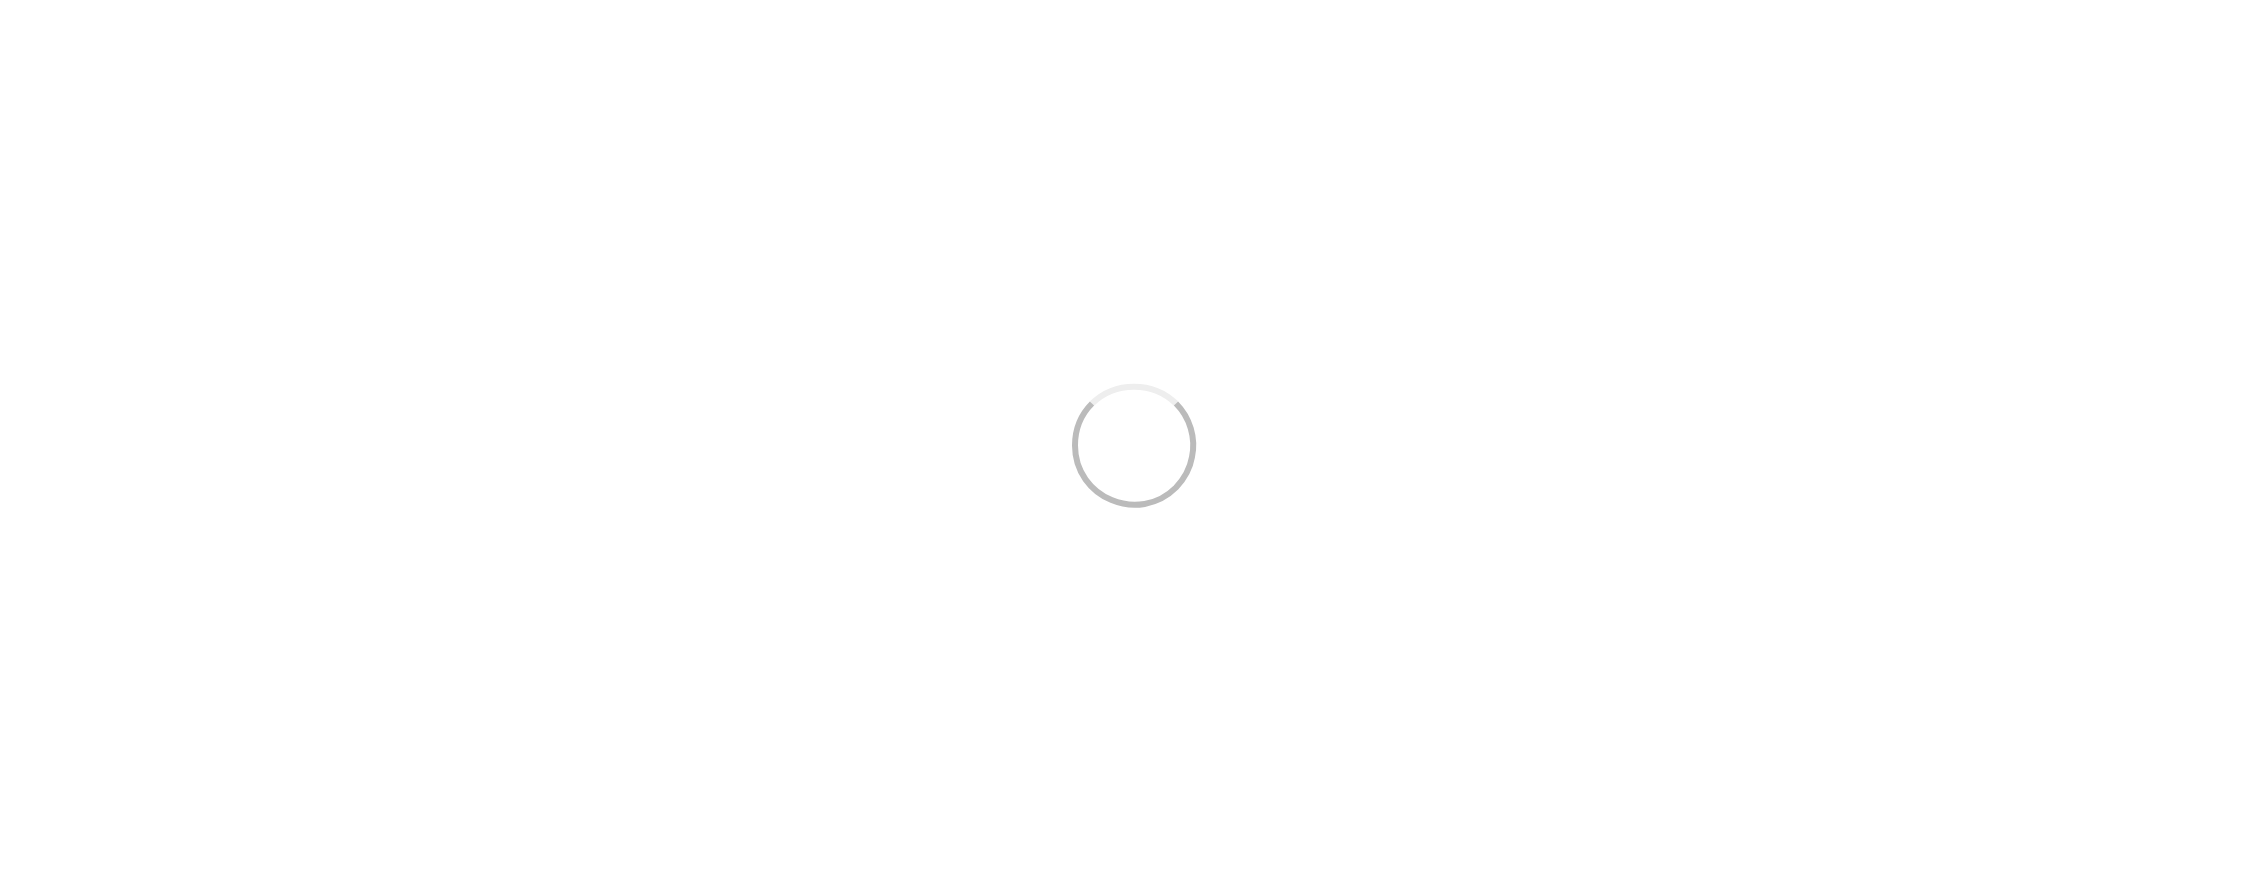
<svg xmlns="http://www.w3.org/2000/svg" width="2268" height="889">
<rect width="100%" height="100%" fill="#fff"/>
<path fill="none" stroke="#eee" stroke-width="6" d="M1092 403.5c23-22.5 61-22.5 84 0"/>
<path fill="none" stroke="#bbb" stroke-width="6" d="M1176 403.5c14 14 20 34.5 16 53.5c-2 11.5-8 22-16 30.5c-37 37-101 10.5-101-42c0-15.5 6-31 17-42"/>
</svg>
